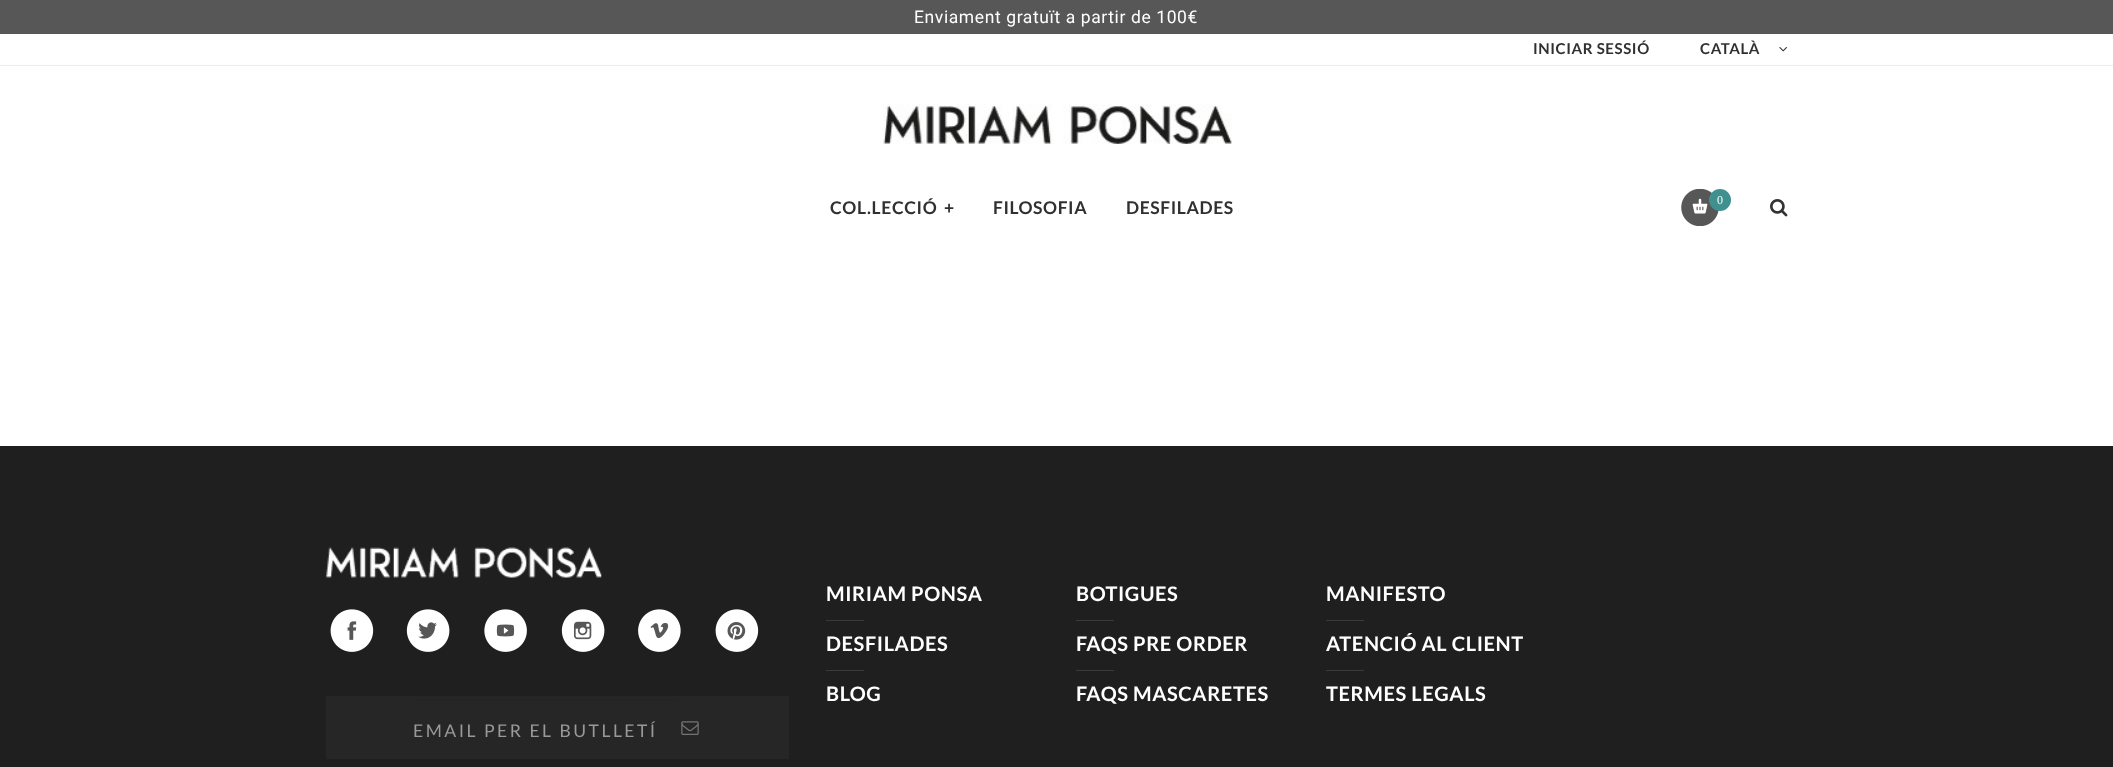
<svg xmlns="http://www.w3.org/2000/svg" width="2113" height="767">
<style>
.a{font:17.5px Roboto;letter-spacing:0.6px;fill:#fff}
.b{font:bold 15px Lato;letter-spacing:0.6px;fill:#303030}
.c{font:bold 17.5px Lato;letter-spacing:0.6px;fill:#303030}
.d{font:12px Liberation Serif;letter-spacing:0.6px;fill:#fff}
.e{font:bold 20px Lato;letter-spacing:0.6px;fill:#fff}
.f{font:17.5px Lato;letter-spacing:2.5px;fill:#999}
</style>
<rect width="100%" height="100%" fill="#fff"/>
<path fill="#585757" d="M0 0h2113v34H0z"/>
<path fill="#ececec" d="M0 65h2113v1H0z"/>
<image href="1.png" x="1779" y="47" width="8" height="5"/>
<image href="2.png" x="883" y="104" width="349" height="40"/>
<image href="3.png" x="1681" y="189" width="38" height="37"/>
<circle fill="#40908f" cx="1720" cy="200" r="11"/>
<image href="4.png" x="1770" y="199" width="18" height="18"/>
<path fill="#1f1f1f" d="M0 446h2113v321H0z"/>
<image href="5.png" x="326" y="547" width="276" height="31"/>
<path fill="#3a3a3a" d="M826 620h38v1H826z"/>
<path fill="#3a3a3a" d="M826 670h38v1H826z"/>
<path fill="#3a3a3a" d="M1076 620h38v1H1076z"/>
<path fill="#3a3a3a" d="M1076 670h38v1H1076z"/>
<path fill="#3a3a3a" d="M1326 620h38v1H1326z"/>
<path fill="#3a3a3a" d="M1326 670h38v1H1326z"/>
<image href="6.png" x="330" y="609" width="44" height="43"/>
<image href="7.png" x="406" y="609" width="44" height="43"/>
<image href="8.png" x="484" y="609" width="43" height="43"/>
<image href="9.png" x="561" y="609" width="44" height="43"/>
<image href="10.png" x="638" y="609" width="43" height="43"/>
<image href="11.png" x="715" y="609" width="44" height="43"/>
<path fill="#262626" d="M326 696h463v63H326z"/>
<path fill="#232323" d="M419 700h257c3 0 5 2 5 5c0-3-2-6-5-6h-257c-3 0-5 3-5 6c0-3 2-5 5-5z"/>
<image href="12.png" x="681" y="721" width="18" height="14"/>
<text class="a" x="914" y="23">Enviament gratuït a partir de 100€</text>
<text class="b" x="1533" y="54">INICIAR SESSIÓ</text>
<text class="b" x="1700" y="54">CATALÀ</text>
<text class="c" x="830" y="214">COL.LECCIÓ</text>
<text class="c" x="944" y="214">+</text>
<text class="c" x="993" y="214">FILOSOFIA</text>
<text class="c" x="1126" y="214">DESFILADES</text>
<text class="d" x="1717" y="204">0</text>
<text class="e" x="826" y="601">MIRIAM PONSA</text>
<text class="e" x="826" y="651">DESFILADES</text>
<text class="e" x="826" y="701">BLOG</text>
<text class="e" x="1076" y="601">BOTIGUES</text>
<text class="e" x="1076" y="651">FAQS PRE ORDER</text>
<text class="e" x="1076" y="701">FAQS MASCARETES</text>
<text class="e" x="1326" y="601">MANIFESTO</text>
<text class="e" x="1326" y="651">ATENCIÓ AL CLIENT</text>
<text class="e" x="1326" y="701">TERMES LEGALS</text>
<text class="f" x="413" y="737">EMAIL PER EL BUTLLETÍ</text>
</svg>
